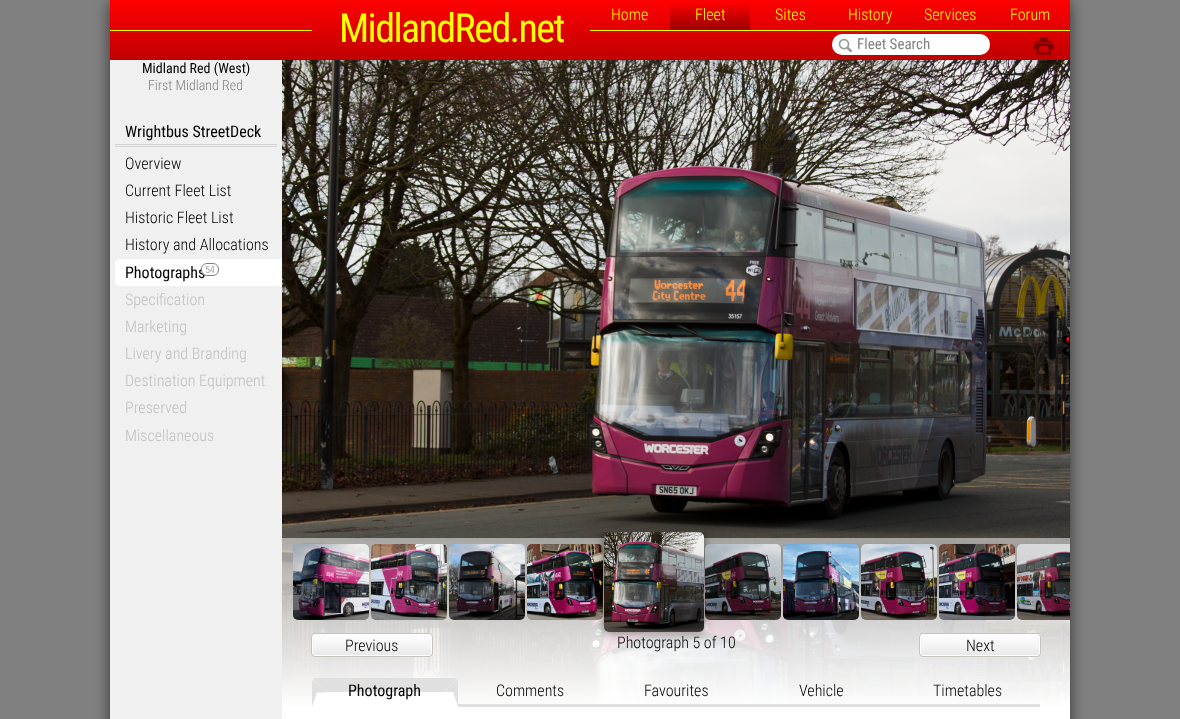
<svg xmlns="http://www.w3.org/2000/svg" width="1180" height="719">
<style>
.a{font:40px Roboto Condensed;letter-spacing:-1.6px;fill:#ff0}
.b{font:300 16px Roboto Condensed;fill:#ff0}
.c{font:15px Roboto Condensed;fill:#808080}
.d{font:14px Roboto Condensed;fill:#000}
.e{font:300 14px Roboto Condensed;fill:#808080}
.f{font:16px Roboto Condensed;fill:#000}
.g{font:300 16px Roboto Condensed;fill:#000}
.h{font:300 10px Roboto Condensed;fill:#808080}
.i{font:300 16px Roboto Condensed;fill:#c0c0c0}
</style>
<defs>
<linearGradient id="g1" gradientUnits="userSpaceOnUse" x1="590" y1="0" x2="590" y2="60"><stop offset="0" stop-color="#f00"/><stop offset="1" stop-color="#c00000"/></linearGradient>
<linearGradient id="g2" gradientUnits="userSpaceOnUse" x1="710" y1="0" x2="710" y2="30"><stop offset="0.1" stop-color="#000" stop-opacity="0"/><stop offset="1" stop-color="#000" stop-opacity="0.3"/></linearGradient>
<clipPath id="clip1"><path d="M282 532h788v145H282z"/></clipPath>
<clipPath id="clip2"><rect x="311" y="633" width="122" height="24" rx="4"/></clipPath>
<linearGradient id="g3" gradientUnits="userSpaceOnUse" x1="372" y1="634" x2="372" y2="656"><stop offset="0" stop-color="#fff"/><stop offset="1" stop-color="#e9e9e9"/></linearGradient>
<clipPath id="clip3"><rect x="919" y="633" width="122" height="24" rx="4"/></clipPath>
<linearGradient id="g4" gradientUnits="userSpaceOnUse" x1="980" y1="634" x2="980" y2="656"><stop offset="0" stop-color="#fff"/><stop offset="1" stop-color="#e9e9e9"/></linearGradient>
</defs>
<rect width="100%" height="100%" fill="#808080"/>
<rect fill="#333" filter="blur(7.5px)" x="110" y="2" width="960" height="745" rx="5"/>
<path fill="#f0f0f0" d="M110 60h172v659H110z"/>
<path fill="url(#g1)" d="M110 0h960v60H110z"/>
<path fill="#ff0" d="M110 30h202v1H110z"/>
<path fill="#ff0" d="M590 30h480v1H590z"/>
<path fill="url(#g2)" d="M670 5h80v25H670z"/>
<rect fill="#fff" x="832" y="34" width="158" height="21" rx="10"/>
<image href="1.png" x="838" y="38" width="14" height="15"/>
<image href="2.png" x="1034" y="37" width="20" height="18"/>
<path fill="#d2d2d2" d="M115 144h162v1H115z"/>
<path fill="#d2d2d2" d="M115 146h162v1H115z"/>
<path fill="#fff" d="M120 259h162v27h-162c-3 0-5-2-5-5v-17c0-3 2-5 5-5z"/>
<path fill="#fff" d="M282 708h788v11H282z"/>
<image href="3.png" x="282" y="60" width="788" height="478"/>
<image href="14.png" x="282" y="538" width="788" height="170"/>
<image href="7.png" x="527" y="544" width="76" height="76"/>
<g clip-path="url(#clip1)">
<rect fill="#00000080" filter="blur(5px)" x="604" y="532" width="100" height="100" rx="5"/>
</g>
<image href="4.png" x="293" y="544" width="76" height="76"/>
<image href="5.png" x="371" y="544" width="76" height="76"/>
<image href="6.png" x="449" y="544" width="76" height="76"/>
<image href="8.png" x="604" y="532" width="100" height="100"/>
<image href="9.png" x="705" y="544" width="76" height="76"/>
<image href="10.png" x="783" y="544" width="76" height="76"/>
<image href="11.png" x="861" y="544" width="76" height="76"/>
<image href="12.png" x="939" y="544" width="76" height="76"/>
<image href="13.png" x="1017" y="544" width="53" height="76"/>
<g clip-path="url(#clip2)">
<path fill="url(#g3)" d="M311 634h122v22H311z"/>
</g>
<rect fill="none" stroke="#fff" x="312.5" y="634.5" width="119" height="21" rx="2.5"/>
<rect fill="none" stroke="#c7c3bf" x="311.5" y="633.5" width="121" height="23" rx="3.5"/>
<g clip-path="url(#clip3)">
<path fill="url(#g4)" d="M919 634h122v22H919z"/>
</g>
<rect fill="none" stroke="#fff" x="920.5" y="634.5" width="119" height="21" rx="2.5"/>
<rect fill="none" stroke="#c7c3bf" x="919.5" y="633.5" width="121" height="23" rx="3.5"/>
<path fill="#e0e0e0" d="M317 678h137l3 1l-13 13h-118l-13-13c1-1 3-1 4-1z"/>
<path fill="#e0e0e0" d="M456.5 679.5l-13 13h9.5l5 14.5v-24c0-1.5-.5-3-1.5-3.5z"/>
<path fill="#fff" d="M458 707l-5-15h-136l-5 15z"/>
<path fill="#e0e0e0" d="M312 707v-24c0-1.5 .5-3 1.5-3.5l13 13h-9.5l-4 11.5z"/>
<path fill="#e0e0e0" d="M458 704h582v3H458z"/>
<text class="a" x="339" y="42">MidlandRed.net</text>
<text class="b" x="611" y="20">Home</text>
<text class="b" x="695" y="20">Fleet</text>
<text class="b" x="775" y="20">Sites</text>
<text class="b" x="848" y="20">History</text>
<text class="b" x="924" y="20">Services</text>
<text class="b" x="1010" y="20">Forum</text>
<text class="c" x="857" y="49">Fleet Search</text>
<text class="d" x="142" y="73">Midland Red (West)</text>
<text class="e" x="148" y="90">First Midland Red</text>
<text class="f" x="125" y="137">Wrightbus StreetDeck</text>
<text class="g" x="125" y="169">Overview</text>
<text class="g" x="125" y="196">Current Fleet List</text>
<text class="g" x="125" y="223">Historic Fleet List</text>
<text class="g" x="125" y="250">History and Allocations</text>
<text class="f" x="125" y="278">Photographs</text>
<rect fill="#fff" stroke="#808080" x="201.5" y="263.5" width="17" height="12" rx="5.5"/>
<text class="h" x="205" y="273">54</text>
<text class="i" x="125" y="305">Specification</text>
<text class="i" x="125" y="332">Marketing</text>
<text class="i" x="125" y="359">Livery and Branding</text>
<text class="i" x="125" y="386">Destination Equipment</text>
<text class="i" x="125" y="413">Preserved</text>
<text class="i" x="125" y="441">Miscellaneous</text>
<text class="g" x="345" y="651">Previous</text>
<text class="g" x="617" y="648">Photograph 5 of 10</text>
<text class="g" x="966" y="651">Next</text>
<text class="f" x="348" y="696">Photograph</text>
<text class="g" x="496" y="696">Comments</text>
<text class="g" x="644" y="696">Favourites</text>
<text class="g" x="799" y="696">Vehicle</text>
<text class="g" x="933" y="696">Timetables</text>
</svg>
